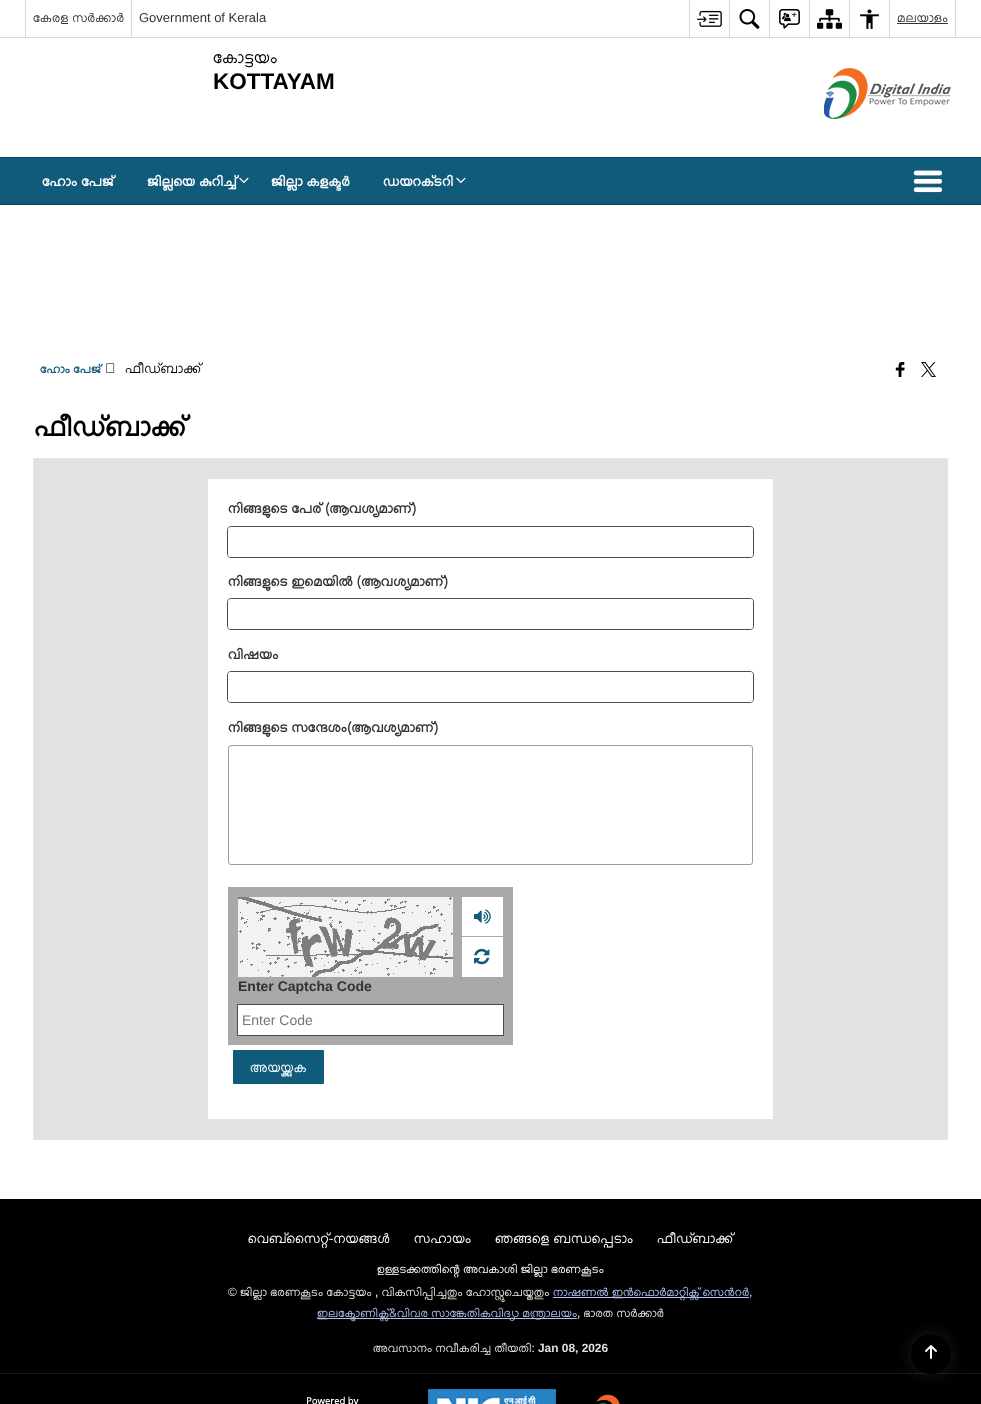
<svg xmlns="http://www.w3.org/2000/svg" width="981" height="1404">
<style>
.a{font:13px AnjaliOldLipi;fill:#333}
.b{font:13px Liberation Sans;fill:#333}
.c{font:17px AnjaliOldLipi;fill:#000}
.d{font:bold 22.5px Liberation Sans;fill:#000}
.e{font:bold 14px AnjaliOldLipi;fill:#fff}
.f{font:bold 11.9px AnjaliOldLipi;fill:#105b7a}
.g{font:14px AnjaliOldLipi;fill:#000}
.h{font:bold 28px AnjaliOldLipi;fill:#000}
.i{font:bold 14px AnjaliOldLipi;fill:#333}
.j{font:bold 14px Liberation Sans;fill:#333}
.k{font:14px Liberation Sans;fill:#757575}
.l{font:14px AnjaliOldLipi;fill:#fff}
.m{font:11.9px AnjaliOldLipi;fill:#fff}
.n{font:11.9px Liberation Sans;fill:#e2e2e1}
.o{font:11.9px AnjaliOldLipi;fill:#e2e2e1}
.p{font:11.9px AnjaliOldLipi;fill:#b4c1f5}
.q{font:bold 11.9px Liberation Sans;fill:#e2e2e1}
</style>
<rect width="100%" height="100%" fill="#fff"/>
<path fill="#d8d8d8" d="M0 37h981v1H0z"/>
<path fill="#d8d8d8" d="M25 0h1v37H25z"/>
<path fill="#d8d8d8" d="M131 0h1v37H131z"/>
<path fill="#d8d8d8" d="M689 0h1v37H689z"/>
<image href="1.png" x="697" y="10" width="25" height="17"/>
<path fill="#d8d8d8" d="M729 0h1v37H729z"/>
<image href="2.png" x="739" y="9" width="21" height="20"/>
<path fill="#d8d8d8" d="M769 0h1v37H769z"/>
<image href="3.png" x="779" y="9" width="21" height="20"/>
<path fill="#d8d8d8" d="M809 0h1v37H809z"/>
<image href="4.png" x="817" y="9" width="25" height="20"/>
<path fill="#d8d8d8" d="M849 0h1v37H849z"/>
<image href="5.png" x="860" y="9" width="19" height="20"/>
<path fill="#d8d8d8" d="M955 0h1v37H955z"/>
<path fill="#d8d8d8" d="M889 0h1v37H889z"/>
<path fill="#333" d="M897 23h51v1H897z"/>
<image href="6.png" x="824" y="68" width="127" height="51"/>
<path fill="#105b7a" d="M0 158h981v46H0z"/>
<path fill="#0b4055" d="M0 157h981v1H0z"/>
<path fill="#0b4055" d="M0 204h981v1H0z"/>
<image href="7.png" x="239" y="177" width="10" height="7"/>
<image href="7.png" x="456" y="177" width="10" height="7"/>
<image href="8.png" x="913" y="170" width="30" height="23"/>
<image href="9.png" x="106" y="363" width="9" height="10"/>
<image href="10.png" x="895" y="362" width="10" height="15"/>
<image href="11.png" x="921" y="362" width="15" height="15"/>
<path fill="none" stroke="#e6e6e6" d="M33.5 458.5h914v681H33.5z"/>
<path fill="#e2e2e1" d="M34 459h913v680H34z"/>
<path fill="#fff" d="M208 479h565v640H208z"/>
<rect fill="none" stroke="#504949" x="227.5" y="526.5" width="526" height="31" rx="3.5"/>
<rect fill="#fff" x="228" y="527" width="525" height="30" rx="3"/>
<rect fill="none" stroke="#504949" x="227.5" y="598.5" width="526" height="31" rx="3.5"/>
<rect fill="#fff" x="228" y="599" width="525" height="30" rx="3"/>
<rect fill="none" stroke="#504949" x="227.5" y="671.5" width="526" height="31" rx="3.5"/>
<rect fill="#fff" x="228" y="672" width="525" height="30" rx="3"/>
<rect fill="none" stroke="#9c9c9c" x="228.5" y="745.5" width="524" height="119" rx="2.5"/>
<path fill="#a9a9a9" d="M228 887h285v158H228z"/>
<image href="12.png" x="238" y="897" width="215" height="80"/>
<path fill="#fff" d="M462 897h41v80H462z"/>
<path fill="#a9a9a9" d="M462 936h41v1H462z"/>
<image href="13.png" x="474" y="909" width="17" height="15"/>
<image href="14.png" x="474" y="948" width="16" height="17"/>
<path fill="none" stroke="#504949" d="M237.5 1004.5h266v31H237.5z"/>
<path fill="#fff" d="M238 1005h265v30H238z"/>
<rect fill="#105b7a" x="233" y="1050" width="91" height="34" rx="1"/>
<path fill="#000" d="M0 1199h981v205H0z"/>
<path fill="#b4c1f5" d="M553 1297h196v1H553z"/>
<path fill="#b4c1f5" d="M317 1318h260v1H317z"/>
<path fill="#1a1a1a" d="M0 1373h981v1H0z"/>
<image href="15.png" x="307" y="1396" width="52" height="8"/>
<image href="16.png" x="428" y="1389" width="128" height="15"/>
<image href="17.png" x="596" y="1394" width="24" height="10"/>
<rect fill="#3c3c3c" filter="blur(9.5px)" x="916" y="1339" width="30" height="30" rx="15"/>
<circle fill="#000" cx="931" cy="1354" r="20"/>
<image href="18.png" x="925" y="1345" width="12" height="14"/>
<text class="a" x="33" y="22">കേരള സർക്കാർ</text>
<text class="b" x="139" y="22">Government of Kerala</text>
<text class="a" x="897" y="22">മലയാളം</text>
<text class="c" x="213" y="63">കോട്ടയം</text>
<text class="d" x="213" y="89">KOTTAYAM</text>
<text class="e" x="42" y="186">ഹോം പേജ്</text>
<text class="e" x="147" y="186">ജില്ലയെ കുറിച്ച്</text>
<text class="e" x="271" y="186">ജില്ലാ കളക്ടര്‍</text>
<text class="e" x="383" y="186">ഡയറക്‌ടറി</text>
<text class="f" x="40" y="373">ഹോം പേജ്</text>
<text class="g" x="125" y="373">ഫീഡ്ബാക്ക്</text>
<text class="h" x="34" y="436">ഫീഡ്ബാക്ക്</text>
<text class="i" x="228" y="513">നിങ്ങളുടെ പേര് (ആവശ്യമാണ്)</text>
<text class="i" x="228" y="586">നിങ്ങളുടെ ഇമെയിൽ (ആവശ്യമാണ്)</text>
<text class="i" x="228" y="659">വിഷയം</text>
<text class="i" x="228" y="732">നിങ്ങളുടെ സന്ദേശം(ആവശ്യമാണ്)</text>
<text class="j" x="238" y="991">Enter Captcha Code</text>
<text class="k" x="242" y="1025">Enter Code</text>
<text class="l" x="250" y="1072">അയയ്ക്കുക</text>
<text class="l" x="248" y="1243">വെബ്സൈറ്റ്-നയങ്ങള്‍</text>
<text class="l" x="414" y="1243">സഹായം</text>
<text class="l" x="495" y="1243">ഞങ്ങളെ ബന്ധപ്പെടാം</text>
<text class="l" x="657" y="1243">ഫീഡ്ബാക്ക്</text>
<text class="m" x="377" y="1273">ഉള്ളടക്കത്തിന്റെ അവകാശി ജില്ലാ ഭരണകൂടം</text>
<text class="n" x="228" y="1296">©</text>
<text class="o" x="240" y="1296">ജില്ലാ ഭരണകൂടം കോട്ടയം , വികസിപ്പിച്ചതും ഹോസ്റ്റുചെയ്തതും</text>
<text class="p" x="553" y="1296">നാഷണല്‍ ഇന്‍ഫൊര്‍മാറ്റിക്സ് സെന്‍റര്‍</text>
<text class="n" x="749" y="1296">,</text>
<text class="p" x="317" y="1317">ഇലക്ട്രോണിക്സ്&amp;വിവര സാങ്കേതികവിദ്യാ മന്ത്രാലയം</text>
<text class="o" x="577" y="1317">, ഭാരത സര്‍ക്കാര്‍</text>
<text class="o" x="373" y="1352">അവസാനം നവീകരിച്ച തീയതി:</text>
<text class="q" x="538" y="1352">Jan 08, 2026</text>
</svg>
